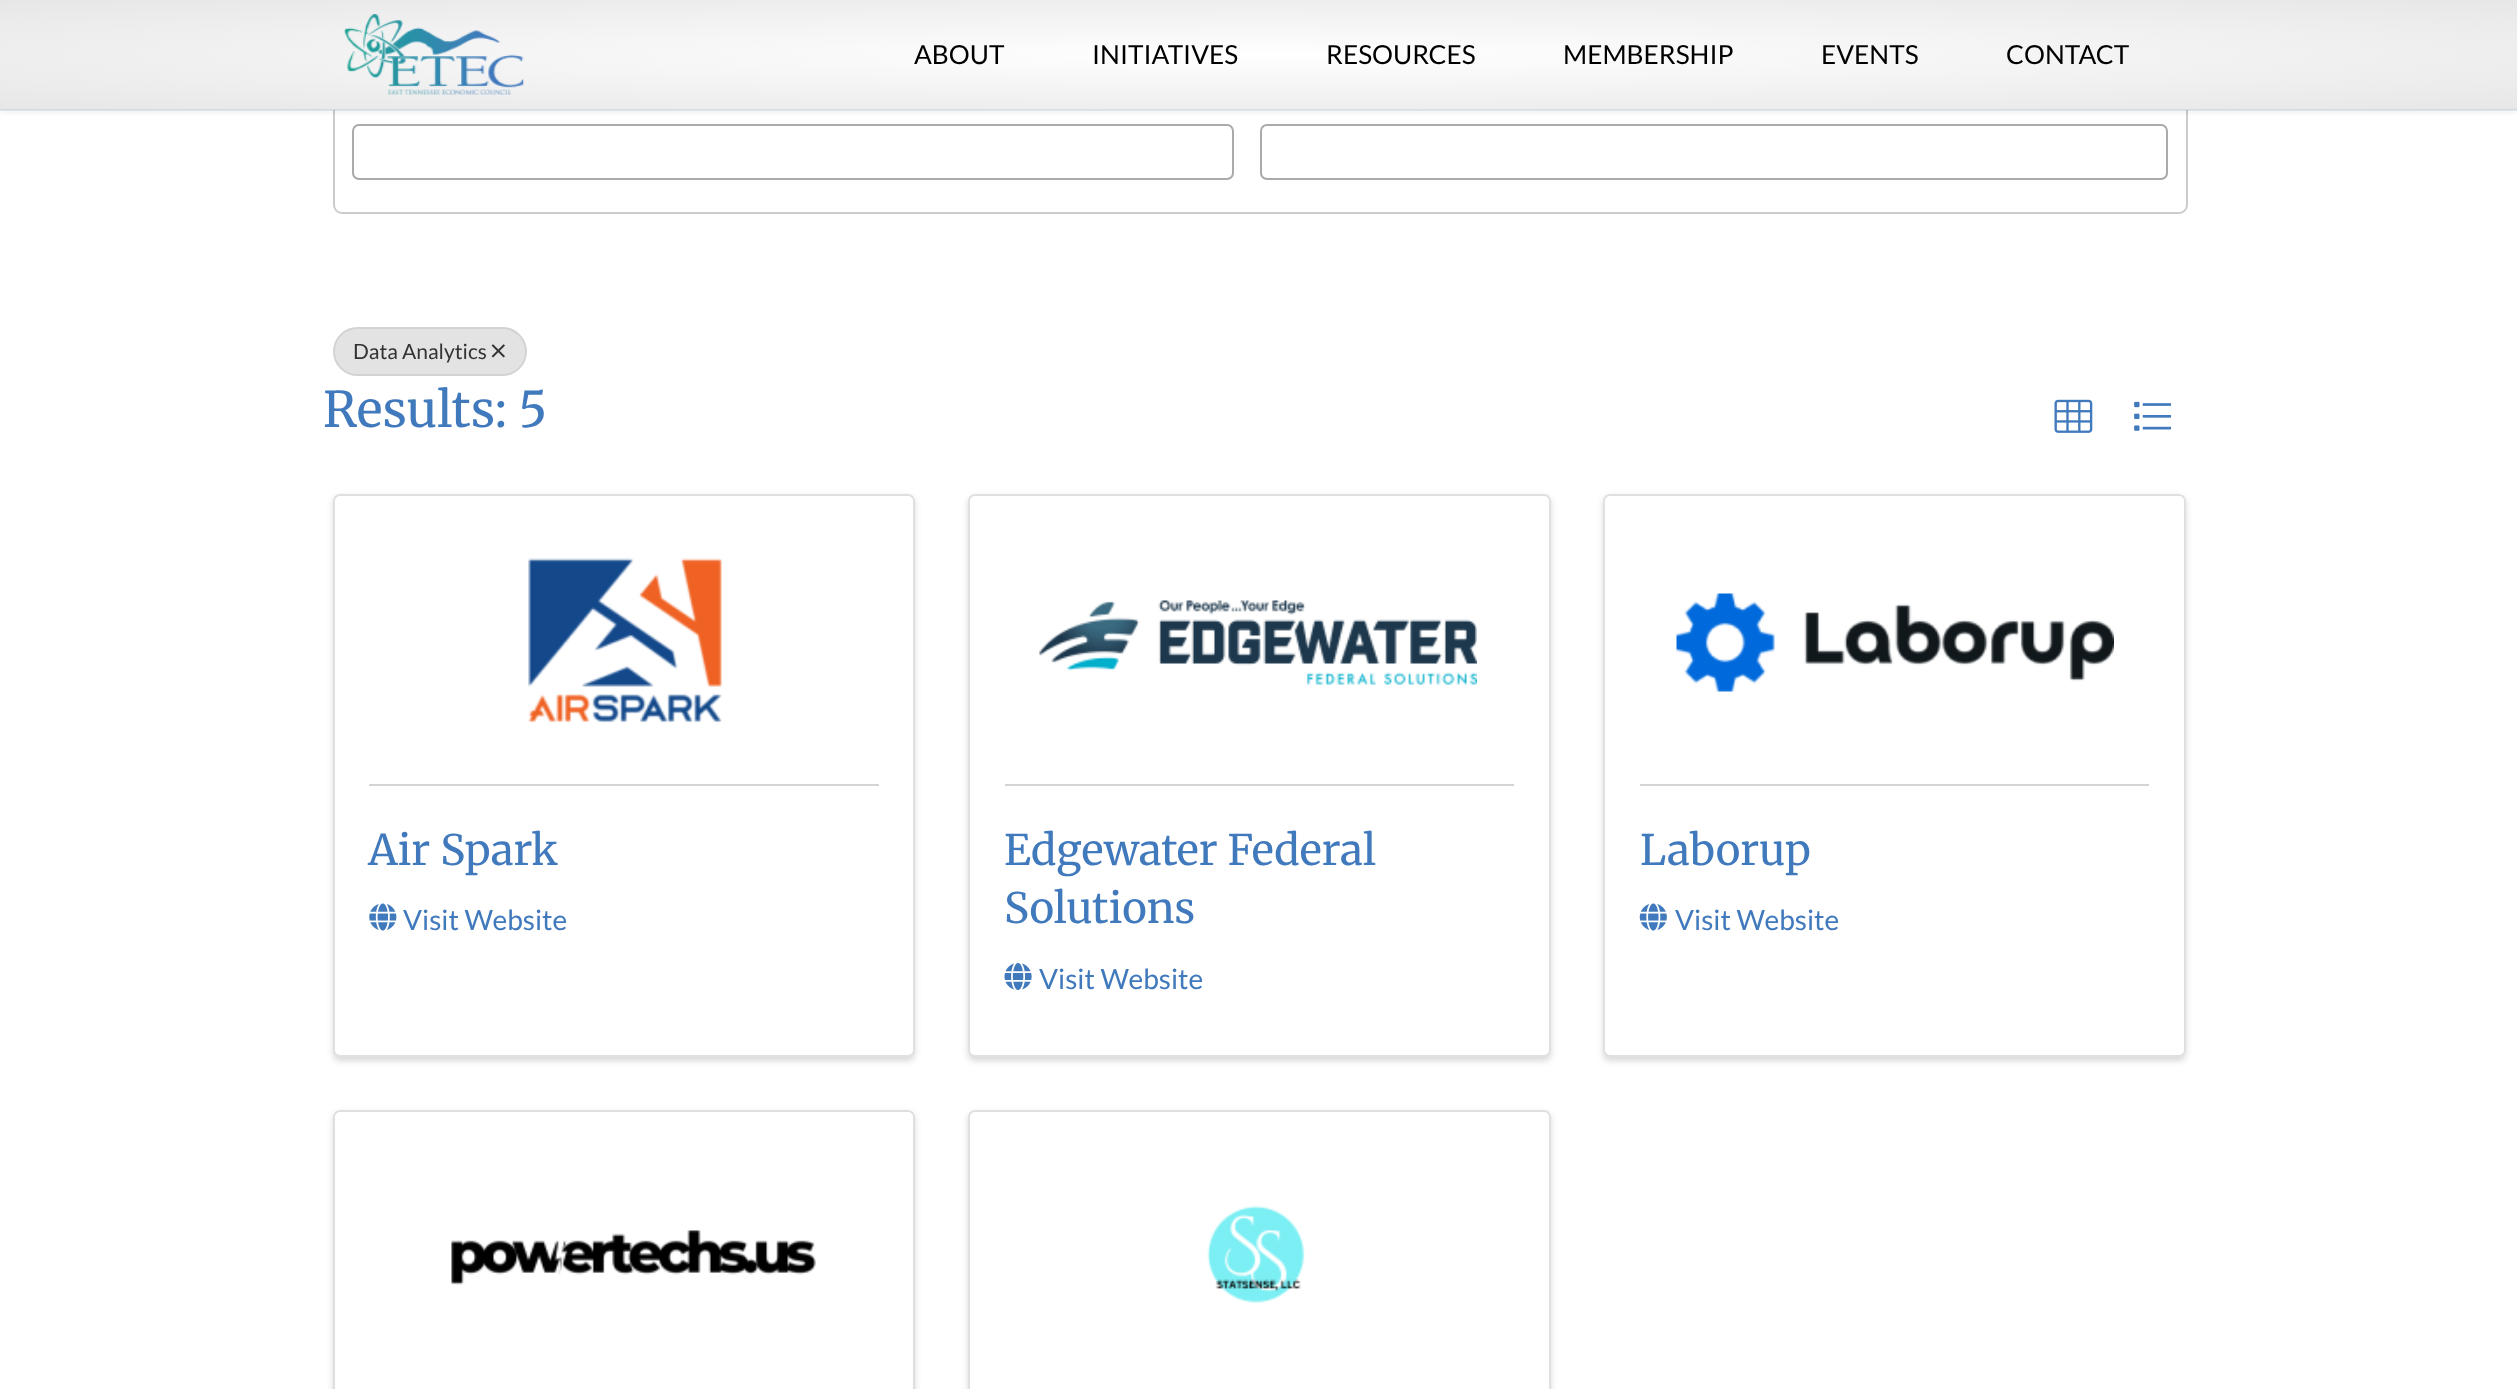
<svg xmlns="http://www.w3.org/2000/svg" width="2517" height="1389">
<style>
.a{font:26.25px Lato;fill:#000}
.b{font:21px Lato;fill:#333}
.c{font:300 49px Merriweather;fill:#4079bc}
.d{font:300 42px Merriweather;fill:#4079bc}
.e{font:28px Lato;fill:#4079bc}
</style>
<defs>
<clipPath id="clip1"><path d="M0 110h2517v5H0z"/></clipPath>
<radialGradient id="g1" gradientUnits="userSpaceOnUse" cx="0" cy="0" r="1" gradientTransform="matrix(1781 0 0 78 1259 55)"><stop offset="0" stop-color="#fff" stop-opacity="0.98"/><stop offset="1" stop-color="#e6e6e6" stop-opacity="0.98"/></radialGradient>
<clipPath id="clip2"><path d="M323 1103h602v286h-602zm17 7h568c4 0 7 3 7 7v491c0 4-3 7-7 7h-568c-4 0-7-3-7-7v-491c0-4 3-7 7-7z" clip-rule="evenodd"/></clipPath>
</defs>
<rect width="100%" height="100%" fill="#fff"/>
<image href="2.png" x="546" y="38" width="25" height="15"/>
<rect fill="none" stroke="#ccc" stroke-width="2" x="334" y="66" width="1853" height="147" rx="8"/>
<rect fill="none" stroke="#aaa" stroke-width="2" x="353" y="125" width="880" height="54" rx="6"/>
<rect fill="none" stroke="#aaa" stroke-width="2" x="1261" y="125" width="906" height="54" rx="6"/>
<g clip-path="url(#clip1)">
<path fill="#0000001a" filter="blur(6px)" d="M0 0h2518v110H0z"/>
</g>
<path fill="#fffffffa" d="M333 38h1855v72H333z"/>
<path fill="url(#g1)" d="M0 0h2517v110H0z"/>
<path fill="#4079bc21" d="M0 109h2517v2H0z"/>
<image href="1.png" x="344" y="14" width="180" height="81"/>
<rect fill="#e3e3e3" x="333" y="327" width="194" height="49" rx="24.5"/>
<rect fill="none" stroke="#00000012" stroke-width="2" x="334" y="328" width="192" height="47" rx="23.5"/>
<image href="3.png" x="491" y="344" width="14" height="14"/>
<image href="4.png" x="2054" y="399" width="39" height="34"/>
<image href="5.png" x="2134" y="401" width="38" height="30"/>
<rect fill="#00000026" filter="blur(3px)" x="333" y="497" width="582" height="564" rx="7"/>
<rect fill="#fff" x="333" y="494" width="582" height="563" rx="7"/>
<rect fill="none" stroke="#0000001f" stroke-width="2" x="334" y="495" width="580" height="561" rx="6"/>
<image href="6.png" x="528" y="558" width="195" height="165"/>
<path fill="#d4d4d4" d="M369 784h510v2H369z"/>
<image href="7.png" x="369" y="903" width="28" height="28"/>
<rect fill="#00000026" filter="blur(3px)" x="968" y="497" width="583" height="564" rx="7"/>
<rect fill="#fff" x="968" y="494" width="583" height="563" rx="7"/>
<rect fill="none" stroke="#0000001f" stroke-width="2" x="969" y="495" width="581" height="561" rx="6"/>
<image href="8.png" x="1039" y="600" width="438" height="85"/>
<path fill="#d4d4d4" d="M1005 784h509v2H1005z"/>
<image href="9.png" x="1004" y="963" width="28" height="27"/>
<rect fill="#00000026" filter="blur(3px)" x="1603" y="497" width="583" height="564" rx="7"/>
<rect fill="#fff" x="1603" y="494" width="583" height="563" rx="7"/>
<rect fill="none" stroke="#0000001f" stroke-width="2" x="1604" y="495" width="581" height="561" rx="6"/>
<image href="10.png" x="1676" y="593" width="438" height="99"/>
<path fill="#d4d4d4" d="M1640 784h509v2H1640z"/>
<image href="11.png" x="1639" y="903" width="28" height="28"/>
<g clip-path="url(#clip2)">
<rect fill="#00000026" filter="blur(3px)" x="333" y="1113" width="582" height="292" rx="7"/>
</g>
<rect fill="none" stroke="#dfdfdf" stroke-width="2" x="334" y="1111" width="580" height="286" rx="6"/>
<image href="12.png" x="451" y="1230" width="365" height="55"/>
<rect fill="#00000026" filter="blur(3px)" x="968" y="1113" width="583" height="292" rx="7"/>
<rect fill="#fff" x="968" y="1110" width="583" height="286" rx="7"/>
<rect fill="none" stroke="#0000001f" stroke-width="2" x="969" y="1111" width="581" height="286" rx="6"/>
<image href="13.png" x="1207" y="1205" width="98" height="98"/>
<text class="a" x="914" y="64">ABOUT</text>
<text class="a" x="1092" y="64">INITIATIVES</text>
<text class="a" x="1326" y="64">RESOURCES</text>
<text class="a" x="1563" y="64">MEMBERSHIP</text>
<text class="a" x="1821" y="64">EVENTS</text>
<text class="a" x="2006" y="64">CONTACT</text>
<text class="b" x="353" y="359">Data Analytics</text>
<text class="c" x="323" y="427">Results: 5</text>
<text class="d" x="368" y="865">Air Spark</text>
<text class="e" x="403" y="930">Visit Website</text>
<text class="d" x="1004" y="865">Edgewater Federal</text>
<text class="d" x="1004" y="923">Solutions</text>
<text class="e" x="1039" y="989">Visit Website</text>
<text class="d" x="1640" y="865">Laborup</text>
<text class="e" x="1675" y="930">Visit Website</text>
</svg>
